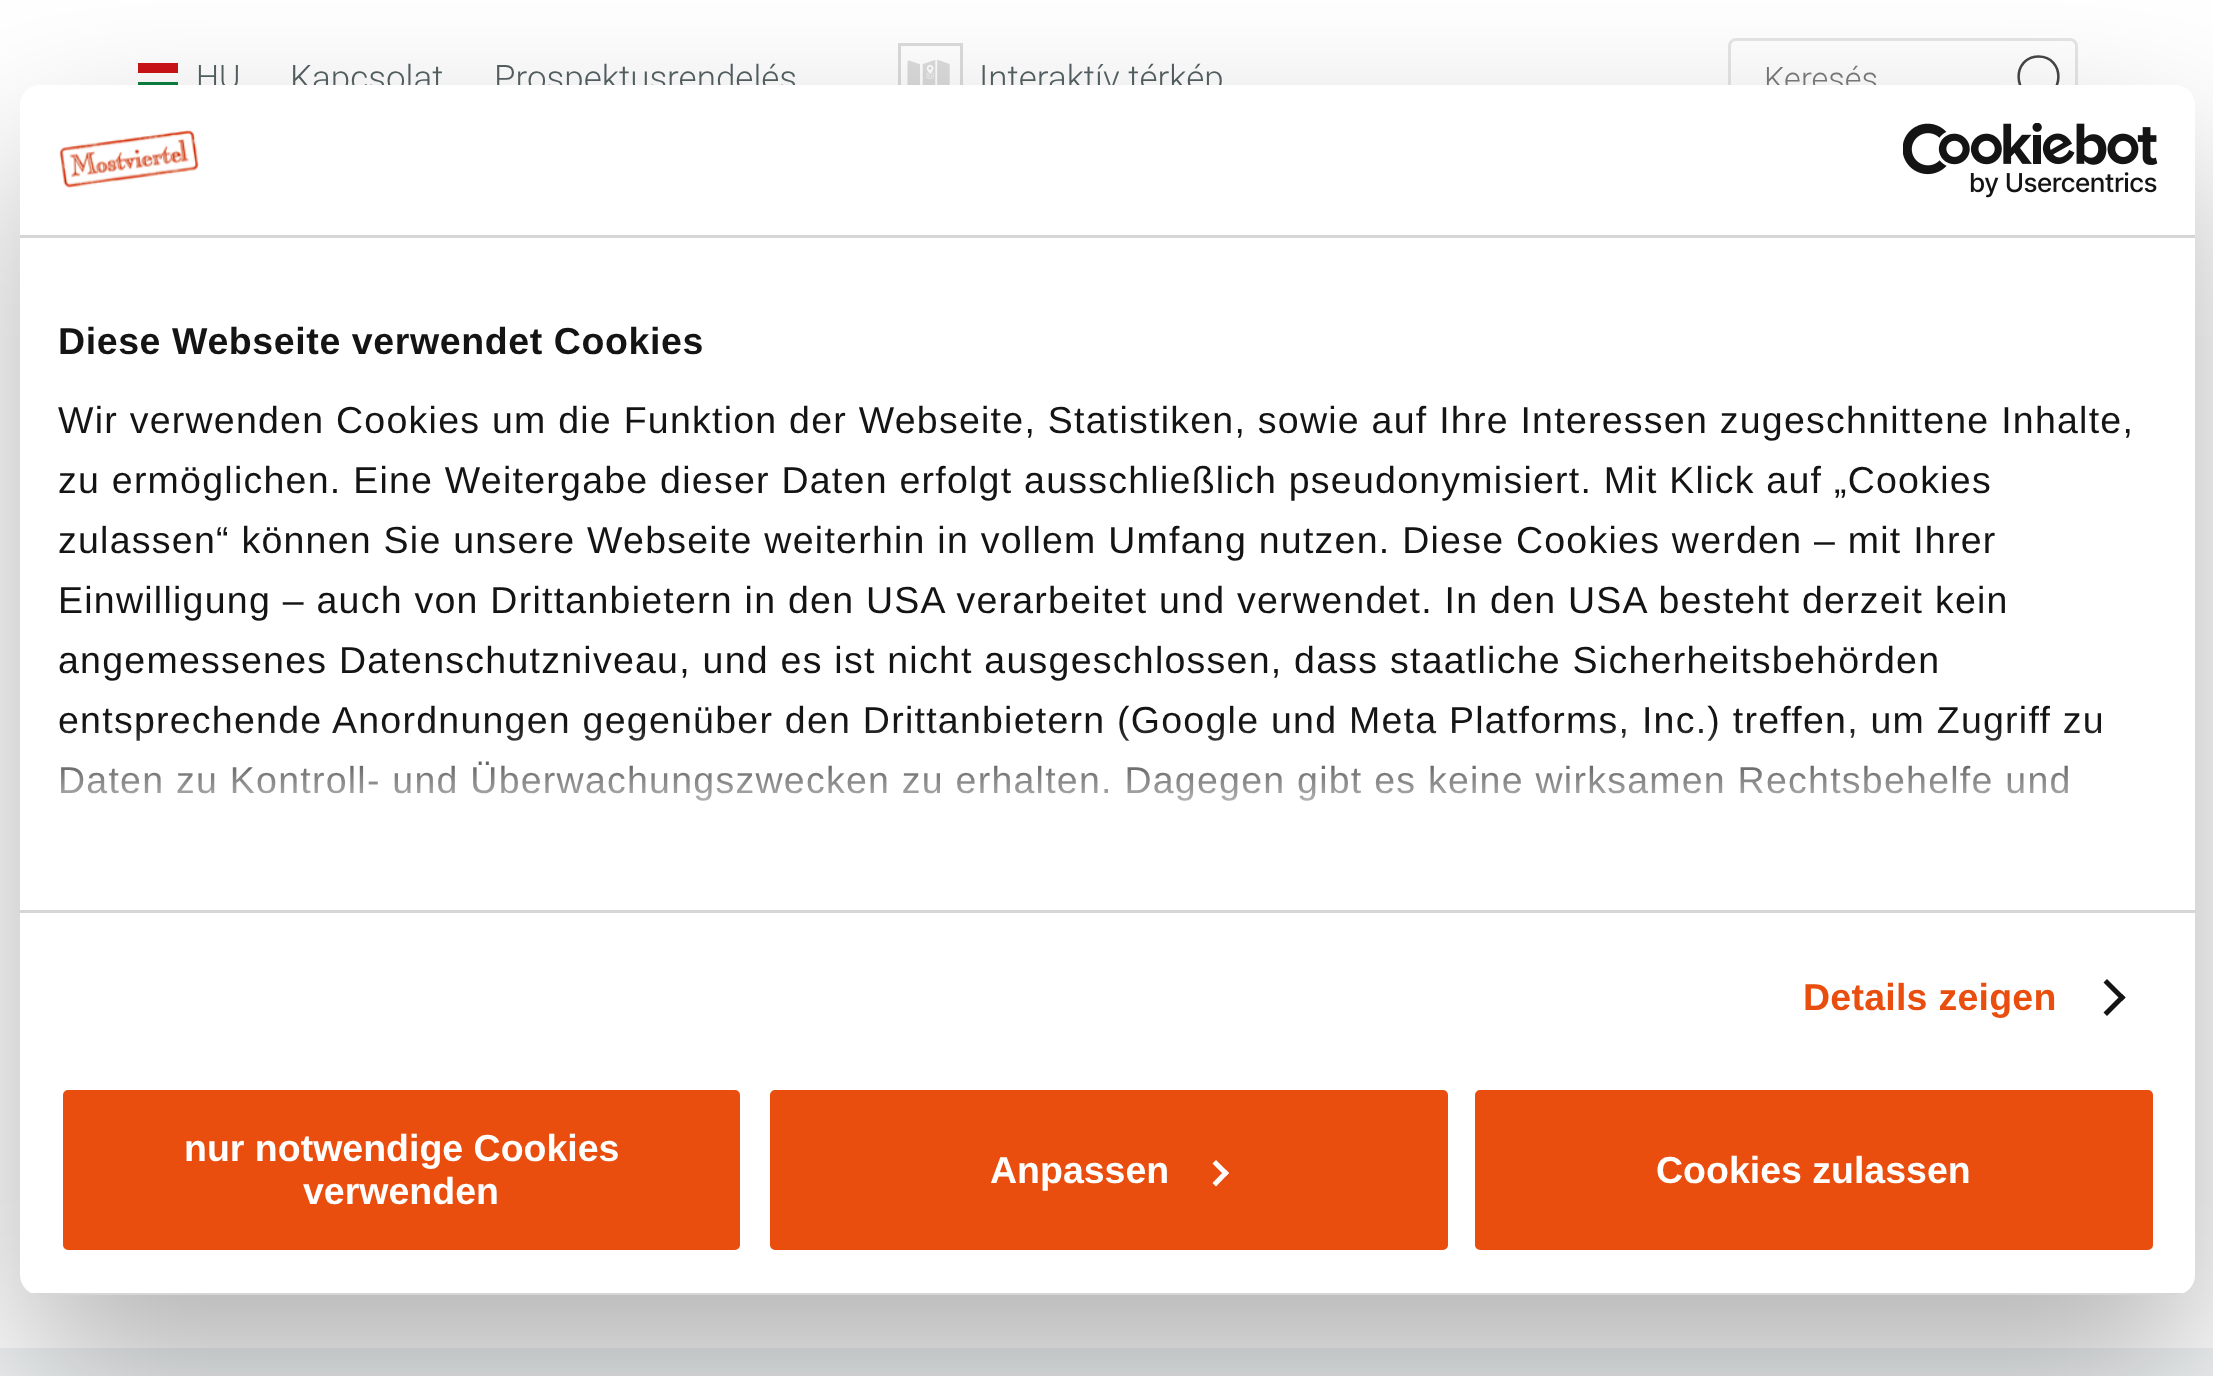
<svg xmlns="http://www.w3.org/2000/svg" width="2213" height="1376">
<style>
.a{font:300 32.5px Roboto;fill:#505c5e}
.b{font:300 35px Roboto;fill:#505c5e}
.c{font:300 32.5px Roboto;fill:#757575}
.d{font:bold 37.5px Liberation Sans;letter-spacing:0.6px;fill:#141414}
.e{font:37.5px Liberation Sans;letter-spacing:1.25px;fill:#141414}
.f{font:bold 37.5px Liberation Sans;letter-spacing:0.25px;fill:#e94e0f}
.g{font:bold 37.5px Liberation Sans;fill:#fff}
</style>
<defs>
<linearGradient id="g1" gradientUnits="userSpaceOnUse" x1="1091" y1="910" x2="1091" y2="723"><stop offset="0" stop-color="#fff"/><stop offset="0.5" stop-color="#fff" stop-opacity="0.8"/><stop offset="1" stop-color="#fff" stop-opacity="0"/></linearGradient>
<clipPath id="clip1"><rect x="20" y="85" width="2175" height="1210" rx="20"/></clipPath>
</defs>
<rect width="100%" height="100%" fill="#fff"/>
<path fill="#0e8140" d="M138 82h40v3H138z"/>
<path fill="#cc1417" d="M138 63h40v10H138z"/>
<path fill="none" stroke="#dcdcdc" stroke-width="3" d="M899.5 44.5h62v62H899.5z"/>
<image href="1.png" x="907" y="59" width="43" height="26"/>
<path fill="none" stroke="#464646" stroke-width="2.5" d="M2038.5 56.5c26.5 0 26.5 40.5 0 40.5c-26.5 0-26.5-40.5 0-40.5zm-13 35.5l-9.5 9.5"/>
<rect fill="none" stroke="#e6e6e6" stroke-width="3" x="1729.5" y="39.5" width="347" height="79" rx="6.5"/>
<path fill="#f0f3f4" d="M0 1348h2213v28H0z"/>
<rect fill="#0000004d" filter="blur(85px)" x="20" y="165" width="2175" height="1210" rx="20"/>
<text class="a" x="196" y="88">HU</text>
<text class="b" x="290" y="90">Kapcsolat</text>
<text class="b" x="494" y="90">Prospektusrendelés</text>
<text class="b" x="979" y="90">Interaktív térkép</text>
<text class="c" x="1764" y="90">Keresés</text>
<rect fill="#fff" x="20" y="85" width="2175" height="1210" rx="20"/>
<path fill="#d6d6d6" d="M20 235h2175v3H20z"/>
<image href="2.png" x="59" y="130" width="140" height="58"/>
<image href="3.png" x="1903" y="123" width="255" height="75"/>
<path fill="#d6d6d6" d="M20 910h2175v3H20z"/>
<text class="d" x="58" y="354">Diese Webseite verwendet Cookies</text>
<text class="e" x="58" y="433">Wir verwenden Cookies um die Funktion der Webseite, Statistiken, sowie auf Ihre Interessen zugeschnittene Inhalte,</text>
<text class="e" x="58" y="493">zu ermöglichen. Eine Weitergabe dieser Daten erfolgt ausschließlich pseudonymisiert. Mit Klick auf „Cookies</text>
<text class="e" x="58" y="553">zulassen“ können Sie unsere Webseite weiterhin in vollem Umfang nutzen. Diese Cookies werden – mit Ihrer</text>
<text class="e" x="58" y="613">Einwilligung – auch von Drittanbietern in den USA verarbeitet und verwendet. In den USA besteht derzeit kein</text>
<text class="e" x="58" y="673">angemessenes Datenschutzniveau, und es ist nicht ausgeschlossen, dass staatliche Sicherheitsbehörden</text>
<text class="e" x="58" y="733">entsprechende Anordnungen gegenüber den Drittanbietern (Google und Meta Platforms, Inc.) treffen, um Zugriff zu</text>
<text class="e" x="58" y="793">Daten zu Kontroll- und Überwachungszwecken zu erhalten. Dagegen gibt es keine wirksamen Rechtsbehelfe und</text>
<path fill="url(#g1)" d="M59 726h2042v75H59z"/>
<text class="f" x="1803" y="1010">Details zeigen</text>
<path fill="#141414" d="M2107 979l18.5 18.5l-3.5 3.5l-18.5-18.5z"/>
<path fill="#141414" d="M2122 994l3.5 3.5l-18.5 18.5l-3.5-3.5z"/>
<g clip-path="url(#clip1)">
<path fill="#d6d6d6" d="M31 1293h2153v2H31z"/>
</g>
<rect fill="#e94e0f" stroke="#fff" stroke-width="5" x="60.5" y="1087.5" width="682" height="165" rx="7.5"/>
<text class="g" x="184" y="1161">nur notwendige Cookies</text>
<text class="g" x="303" y="1204">verwenden</text>
<rect fill="#e94e0f" stroke="#fff" stroke-width="5" x="767.5" y="1087.5" width="683" height="165" rx="7.5"/>
<text class="g" x="990" y="1183">Anpassen</text>
<path fill="#fff" d="M1216 1160l13 13l-3.5 3.5l-13-13z"/>
<path fill="#fff" d="M1225.5 1169.5l3.5 3.5l-13 13.5l-3.5-3.5z"/>
<rect fill="#e94e0f" stroke="#fff" stroke-width="5" x="1472.5" y="1087.5" width="683" height="165" rx="7.5"/>
<text class="g" x="1656" y="1183">Cookies zulassen</text>
</svg>
